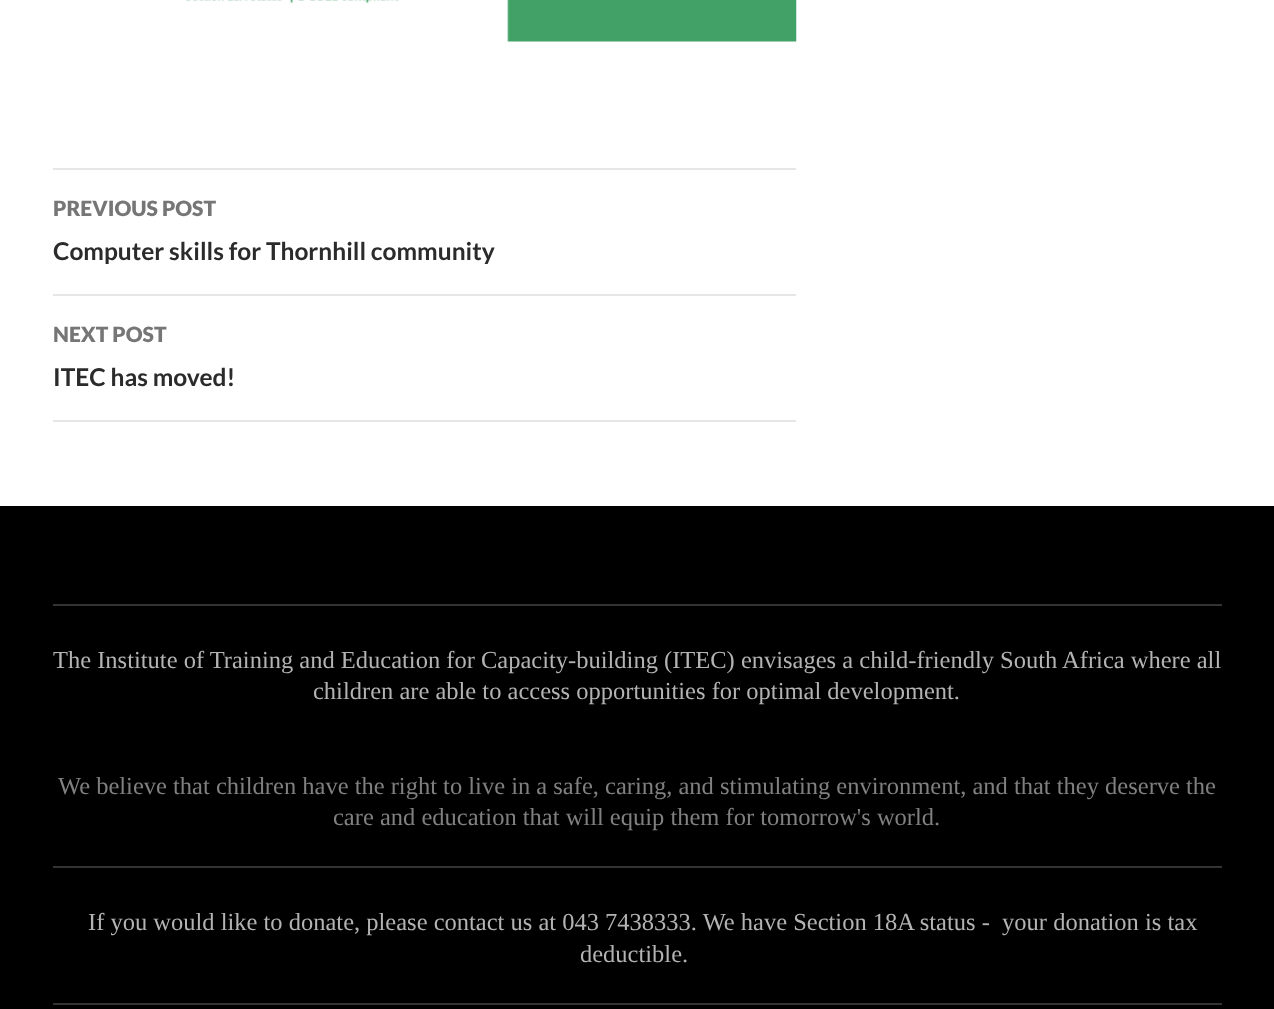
<svg xmlns="http://www.w3.org/2000/svg" width="1274" height="1009">
<style>
.a{font:900 21px Lato;fill:#767676}
.b{font:bold 24.5px Lato;fill:#2b2b2b}
.c{font:24.5px Liberation Serif;fill:#b3b3b3}
.d{font:24.5px Liberation Serif;fill:#808080}
</style>
<rect width="100%" height="100%" fill="#fff"/>
<image href="1.png" x="186" y="0" width="611" height="42"/>
<path fill="#e6e6e6" d="M53 168h743v2H53z"/>
<path fill="#e6e6e6" d="M53 294h743v2H53z"/>
<path fill="#e6e6e6" d="M53 420h743v2H53z"/>
<path fill="#000" d="M0 506h1274v503H0z"/>
<path fill="#333" d="M53 604h1169v2H53z"/>
<path fill="#333" d="M53 866h1169v2H53z"/>
<path fill="#333" d="M53 1003h1169v2H53z"/>
<text class="a" x="53" y="216">PREVIOUS POST</text>
<text class="b" x="53" y="260">Computer skills for Thornhill community</text>
<text class="a" x="53" y="342">NEXT POST</text>
<text class="b" x="53" y="386">ITEC has moved!</text>
<text class="c" x="53" y="668">The Institute of Training and Education for Capacity-building (ITEC) envisages a child-friendly South Africa where all</text>
<text class="c" x="313" y="699">children are able to access opportunities for optimal development.</text>
<text class="d" x="58" y="794">We believe that children have the right to live in a safe, caring, and stimulating environment, and that they deserve the</text>
<text class="d" x="333" y="825">care and education that will equip them for tomorrow's world.</text>
<text class="c" xml:space="preserve" x="88" y="930">If you would like to donate, please contact us at 043 7438333. We have Section 18A status -  your donation is tax</text>
<text class="c" x="580" y="962">deductible.</text>
</svg>
